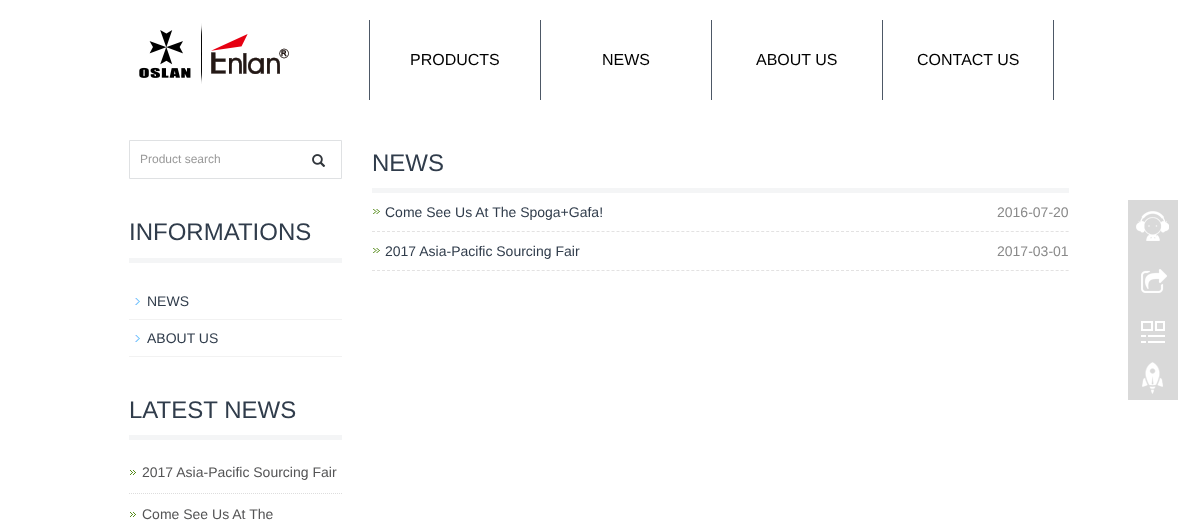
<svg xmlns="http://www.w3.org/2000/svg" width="1198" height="521">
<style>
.a{font:16px Liberation Sans;fill:#000}
.b{font:12px Liberation Sans;fill:#999}
.c{font:24px Liberation Sans;fill:#303c4b}
.d{font:14px Liberation Sans;fill:#303c4b}
.e{font:14px Liberation Sans;fill:#545455}
.f{font:14px Liberation Sans;fill:#898989}
</style>
<rect width="100%" height="100%" fill="#fff"/>
<path fill="#4d5866" d="M369 20h1v80H369z"/>
<image href="1.png" x="139" y="23" width="150" height="61"/>
<path fill="#4d5866" d="M540 20h1v80H540z"/>
<path fill="#4d5866" d="M711 20h1v80H711z"/>
<path fill="#4d5866" d="M882 20h1v80H882z"/>
<path fill="#4d5866" d="M1053 20h1v80H1053z"/>
<path fill="none" stroke="#dfe1e3" d="M129.5 140.5h212v38H129.5z"/>
<image href="2.png" x="312" y="154" width="14" height="13"/>
<path fill="#f4f5f6" d="M129 258h213v5H129z"/>
<image href="3.png" x="135" y="298" width="5" height="7"/>
<path fill="#f2f2f2" d="M129 319h213v1H129z"/>
<image href="3.png" x="135" y="335" width="5" height="7"/>
<path fill="#f2f2f2" d="M129 356h213v1H129z"/>
<path fill="#f4f5f6" d="M129 435h213v5H129z"/>
<image href="4.png" x="130" y="470" width="6" height="5"/>
<path fill="none" stroke="#ddd" stroke-dasharray="1 1" d="M129 493.5h213"/>
<image href="4.png" x="130" y="512" width="6" height="5"/>
<path fill="#f4f5f6" d="M372 188h697v5H372z"/>
<image href="5.png" x="373" y="209" width="7" height="5"/>
<path fill="none" stroke="#e3e2e2" stroke-dasharray="3 1.99" d="M372 231.5h697"/>
<image href="5.png" x="373" y="248" width="7" height="5"/>
<path fill="none" stroke="#e3e2e2" stroke-dasharray="3 1.99" d="M372 270.5h697"/>
<image href="6.png" x="1128" y="200" width="50" height="200"/>
<text class="a" x="410" y="65">PRODUCTS</text>
<text class="a" x="602" y="65">NEWS</text>
<text class="a" x="756" y="65">ABOUT US</text>
<text class="a" x="917" y="65">CONTACT US</text>
<text class="b" x="140" y="163">Product search</text>
<text class="c" x="129" y="240">INFORMATIONS</text>
<text class="d" x="147" y="306">NEWS</text>
<text class="d" x="147" y="343">ABOUT US</text>
<text class="c" x="129" y="418">LATEST NEWS</text>
<text class="e" x="142" y="477">2017 Asia-Pacific Sourcing Fair</text>
<text class="e" x="142" y="519">Come See Us At The</text>
<text class="c" x="372" y="171">NEWS</text>
<text class="d" x="385" y="217">Come See Us At The Spoga+Gafa!</text>
<text class="f" x="997" y="217">2016-07-20</text>
<text class="d" x="385" y="256">2017 Asia-Pacific Sourcing Fair</text>
<text class="f" x="997" y="256">2017-03-01</text>
</svg>
